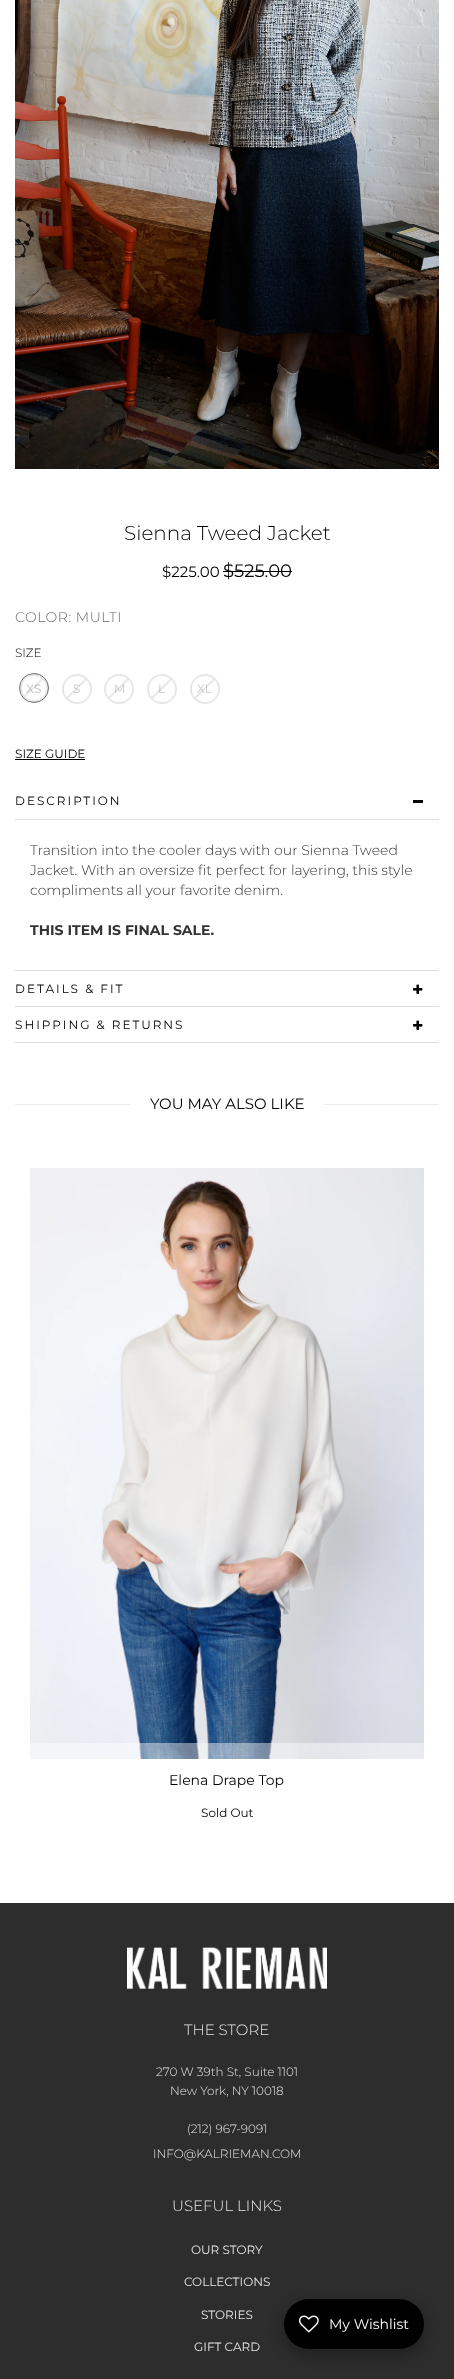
<svg xmlns="http://www.w3.org/2000/svg" width="454" height="2379">
<style>
.a{font:300 20px Montserrat;fill:#000}
.b{font:15px Montserrat;fill:#000}
.c{font:18px Montserrat;fill:#000}
.d{font:300 14px Montserrat;letter-spacing:0.5px;fill:#696969}
.e{font:300 12px Montserrat;fill:#000}
.f{font:500 12px Montserrat;fill:#ccc}
.g{font:12px Montserrat;fill:#ccc}
.h{font:12px Montserrat;fill:#000}
.i{font:12px Montserrat;letter-spacing:2px;fill:#000}
.j{font:300 14px Montserrat;fill:#333}
.k{font:bold 14px Montserrat;fill:#333}
.l{font:14px Montserrat;fill:#000}
.m{font:300 15px Montserrat;fill:#e6e6e6}
.n{font:300 12px Montserrat;fill:#e6e6e6}
.o{font:12px Montserrat;fill:#e6e6e6}
.p{font:14px Montserrat;fill:#fff}
</style>
<rect width="100%" height="100%" fill="#fff"/>
<image href="1.png" x="15" y="0" width="424" height="469"/>
<path fill="#000" d="M223 571h69v1H223z"/>
<circle fill="none" stroke="#717171" cx="34" cy="688" r="14.5"/>
<path fill="#000" d="M15 759h70v1H15z"/>
<path fill="#ddd" d="M15 819h424v1H15z"/>
<path fill="#000" d="M413 800h10v3H413z"/>
<path fill="#ddd" d="M15 970h424v1H15z"/>
<path fill="#ddd" d="M15 1006h424v1H15z"/>
<image href="7.png" x="413" y="984" width="10" height="10"/>
<path fill="#ddd" d="M15 1042h424v1H15z"/>
<image href="7.png" x="413" y="1020" width="10" height="10"/>
<path fill="#ebebeb" d="M15 1104h424v1H15z"/>
<path fill="#fff" d="M130 1104h194v1H130z"/>
<image href="8.png" x="30" y="1168" width="394" height="591"/>
<path fill="#ffffff70" d="M30 1743h394v16H30z"/>
<path fill="#2d2d2d" d="M0 1903h454v476H0z"/>
<image href="9.png" x="127" y="1947" width="200" height="42"/>
<rect fill="#00000059" filter="blur(7.5px)" x="284" y="2304" width="140" height="50" rx="25"/>
<rect fill="#000" x="284" y="2299" width="140" height="50" rx="25"/>
<image href="10.png" x="299" y="2315" width="20" height="18"/>
<text class="a" x="124" y="540">Sienna Tweed Jacket</text>
<text class="b" x="162" y="577">$225.00</text>
<text class="c" x="223" y="577">$525.00</text>
<text class="d" x="15" y="622">COLOR: MULTI</text>
<text class="e" x="15" y="657">SIZE</text>
<text class="f" x="26" y="693">XS</text>
<image href="2.png" x="20" y="674" width="28" height="28"/>
<text class="g" x="73" y="693">S</text>
<image href="3.png" x="62" y="674" width="30" height="30"/>
<text class="g" x="114" y="693">M</text>
<image href="4.png" x="104" y="674" width="30" height="30"/>
<text class="g" x="158" y="693">L</text>
<image href="5.png" x="147" y="674" width="30" height="30"/>
<text class="g" x="197" y="693">XL</text>
<image href="6.png" x="190" y="674" width="30" height="30"/>
<text class="h" x="15" y="758">SIZE GUIDE</text>
<text class="i" x="15" y="805">DESCRIPTION</text>
<text class="j" x="30" y="855">Transition into the cooler days with our Sienna Tweed</text>
<text class="j" x="30" y="875">Jacket. With an oversize fit perfect for layering, this style</text>
<text class="j" x="30" y="895">compliments all your favorite denim.</text>
<text class="k" x="30" y="935">THIS ITEM IS FINAL SALE.</text>
<text class="i" x="15" y="993">DETAILS &amp; FIT</text>
<text class="i" x="15" y="1029">SHIPPING &amp; RETURNS</text>
<text class="b" x="150" y="1109">YOU MAY ALSO LIKE</text>
<text class="l" x="169" y="1785">Elena Drape Top</text>
<text class="h" x="201" y="1817">Sold Out</text>
<text class="m" x="184" y="2035">THE STORE</text>
<text class="n" x="156" y="2076">270 W 39th St, Suite 1101</text>
<text class="n" x="170" y="2095">New York, NY 10018</text>
<text class="n" x="187" y="2133">(212) 967-9091</text>
<text class="n" x="153" y="2158">INFO@KALRIEMAN.COM</text>
<text class="m" x="172" y="2211">USEFUL LINKS</text>
<text class="o" x="191" y="2254">OUR STORY</text>
<text class="o" x="184" y="2286">COLLECTIONS</text>
<text class="o" x="201" y="2319">STORIES</text>
<text class="o" x="194" y="2351">GIFT CARD</text>
<text class="p" x="329" y="2329">My Wishlist</text>
</svg>
